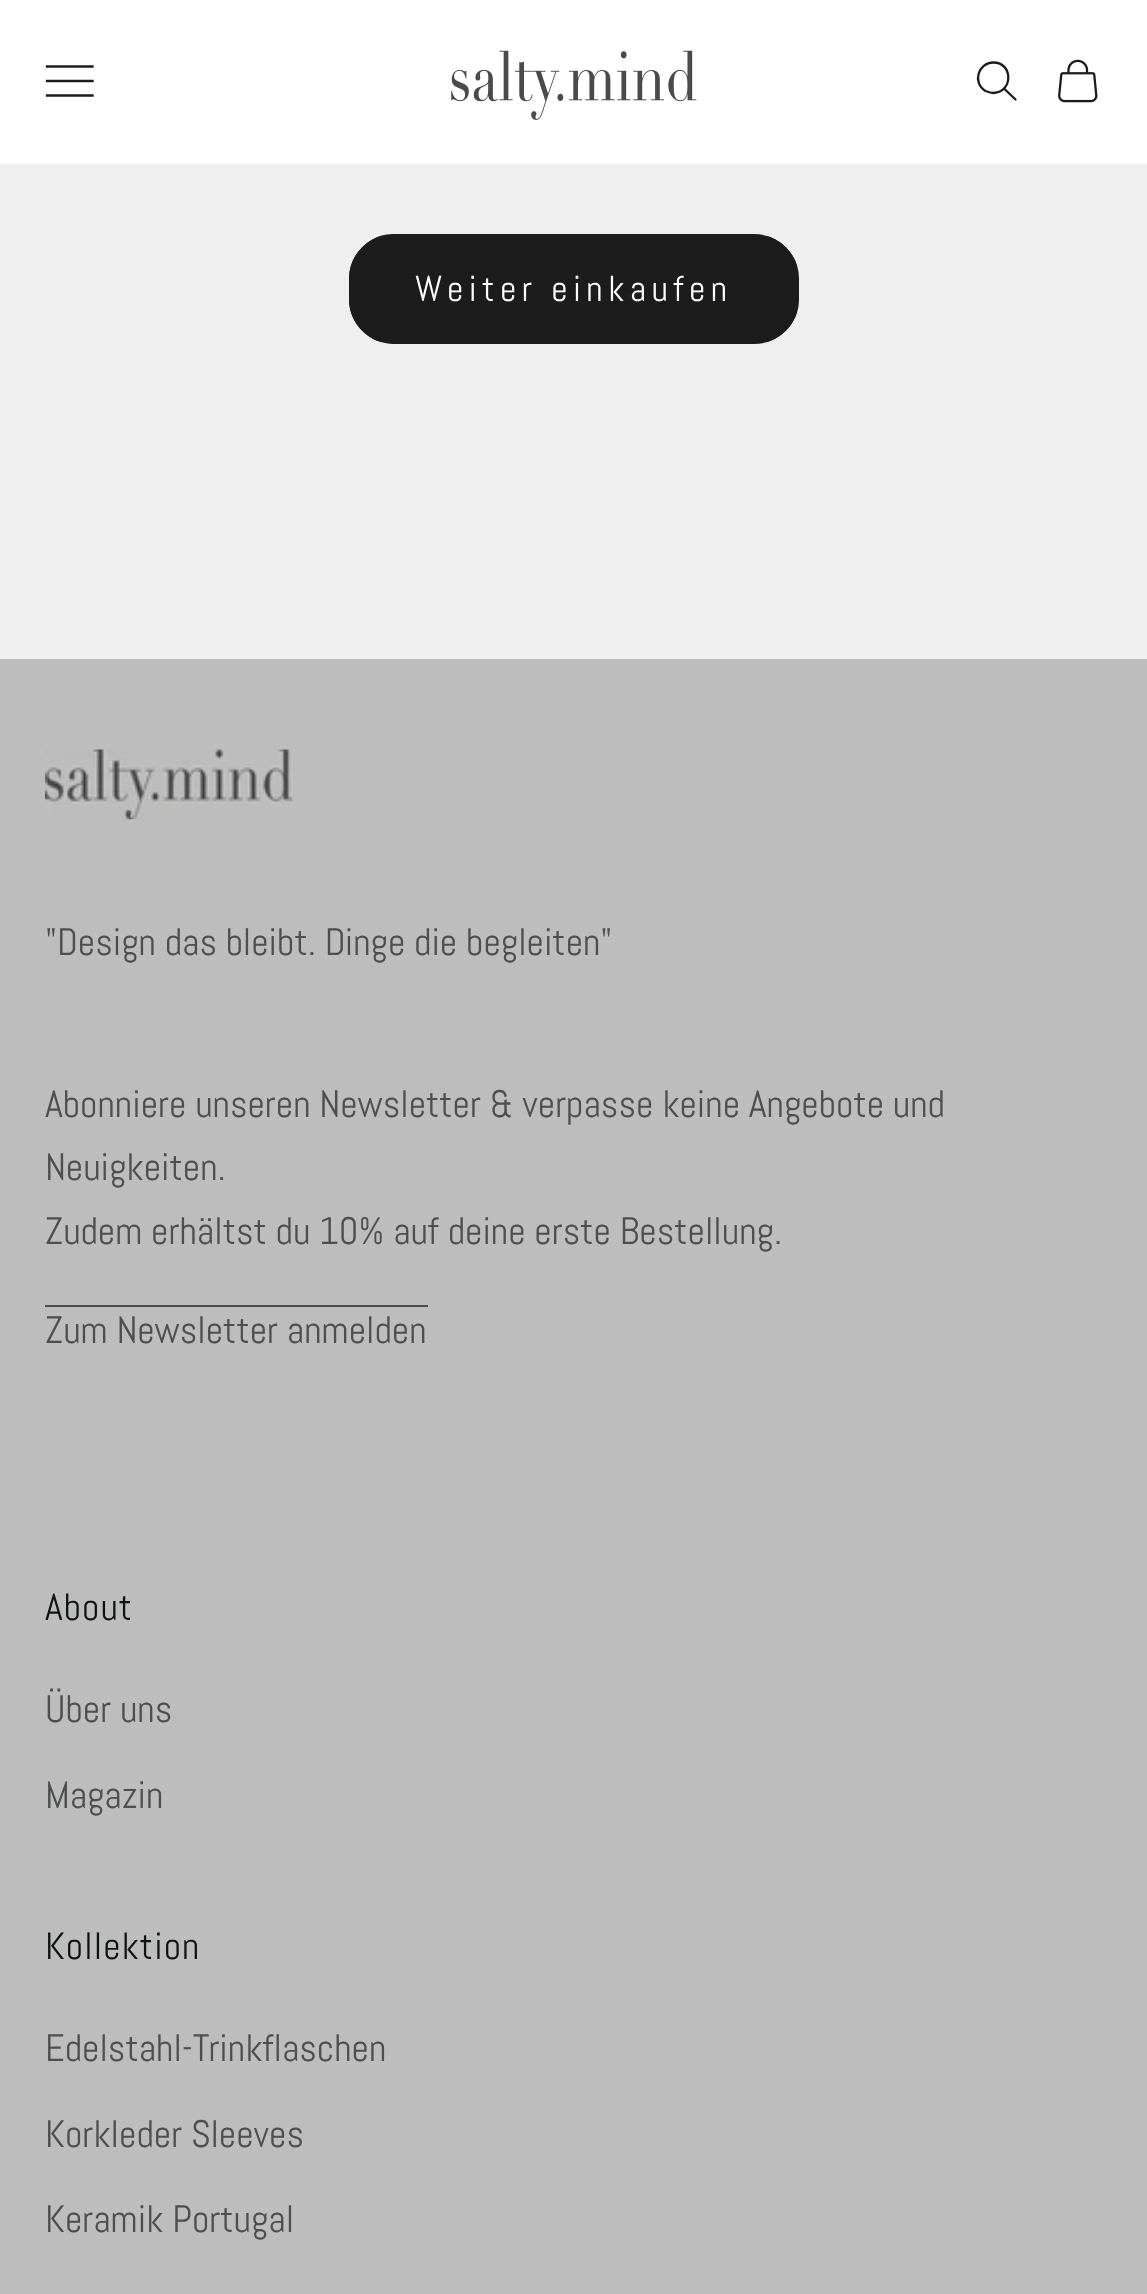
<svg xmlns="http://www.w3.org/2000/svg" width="1147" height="2294">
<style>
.a{font:36px Abel;letter-spacing:5.4px;fill:#fff}
.b{font:38.25px Abel;fill:#4c4f4d}
.c{font:38px Abel;letter-spacing:1.1px;fill:#0e1311}
</style>
<defs>
<clipPath id="clip1"><rect x="349" y="234" width="450" height="110" rx="45"/></clipPath>
</defs>
<rect width="100%" height="100%" fill="#efefef"/>
<path fill="#fff" d="M0 0h1147v164H0z"/>
<path fill="none" stroke="#1c1c1c" stroke-width="2.3" stroke-linecap="square" d="M47 95.5h45.5m-45.5-14.5h45.5m-45.5-14.5h45.5"/>
<image href="1.png" x="451" y="50" width="246" height="70"/>
<path fill="none" stroke="#1c1c1c" stroke-width="2.3" d="M993.5 62.5c-15.5 0-21.5 20.5-8 28.5c2.5 1 5 2 8 2c20-1 19.5-30.5 0-30.5z"/>
<path fill="none" stroke="#1c1c1c" stroke-width="2.3" stroke-linecap="round" d="M1004.5 89l11 10.5"/>
<image href="2.png" x="1058" y="59" width="40" height="44"/>
<g clip-path="url(#clip1)">
<path fill="#1c1c1c" d="M349 236h448v106H349z"/>
</g>
<rect fill="none" stroke="#1c1c1c" stroke-width="2" x="350" y="235" width="448" height="108" rx="44"/>
<path fill="#bebdbd" d="M0 659h1147v1635H0z"/>
<image href="3.png" x="45" y="749" width="248" height="71"/>
<path fill="#4c4f4d" d="M45 1305h383v2H45z"/>
<text class="a" x="415" y="301">Weiter einkaufen</text>
<text class="b" x="45" y="955">"Design das bleibt. Dinge die begleiten"</text>
<text class="b" x="45" y="1117">Abonniere unseren Newsletter &amp; verpasse keine Angebote und</text>
<text class="b" x="45" y="1180">Neuigkeiten.</text>
<text class="b" x="45" y="1244">Zudem erhältst du 10% auf deine erste Bestellung.</text>
<text class="b" x="45" y="1343">Zum Newsletter anmelden</text>
<text class="c" x="45" y="1620">About</text>
<text class="b" x="45" y="1722">Über uns</text>
<text class="b" x="45" y="1808">Magazin</text>
<text class="c" x="45" y="1959">Kollektion</text>
<text class="b" x="45" y="2061">Edelstahl-Trinkflaschen</text>
<text class="b" x="45" y="2147">Korkleder Sleeves</text>
<text class="b" x="45" y="2232">Keramik Portugal</text>
</svg>
